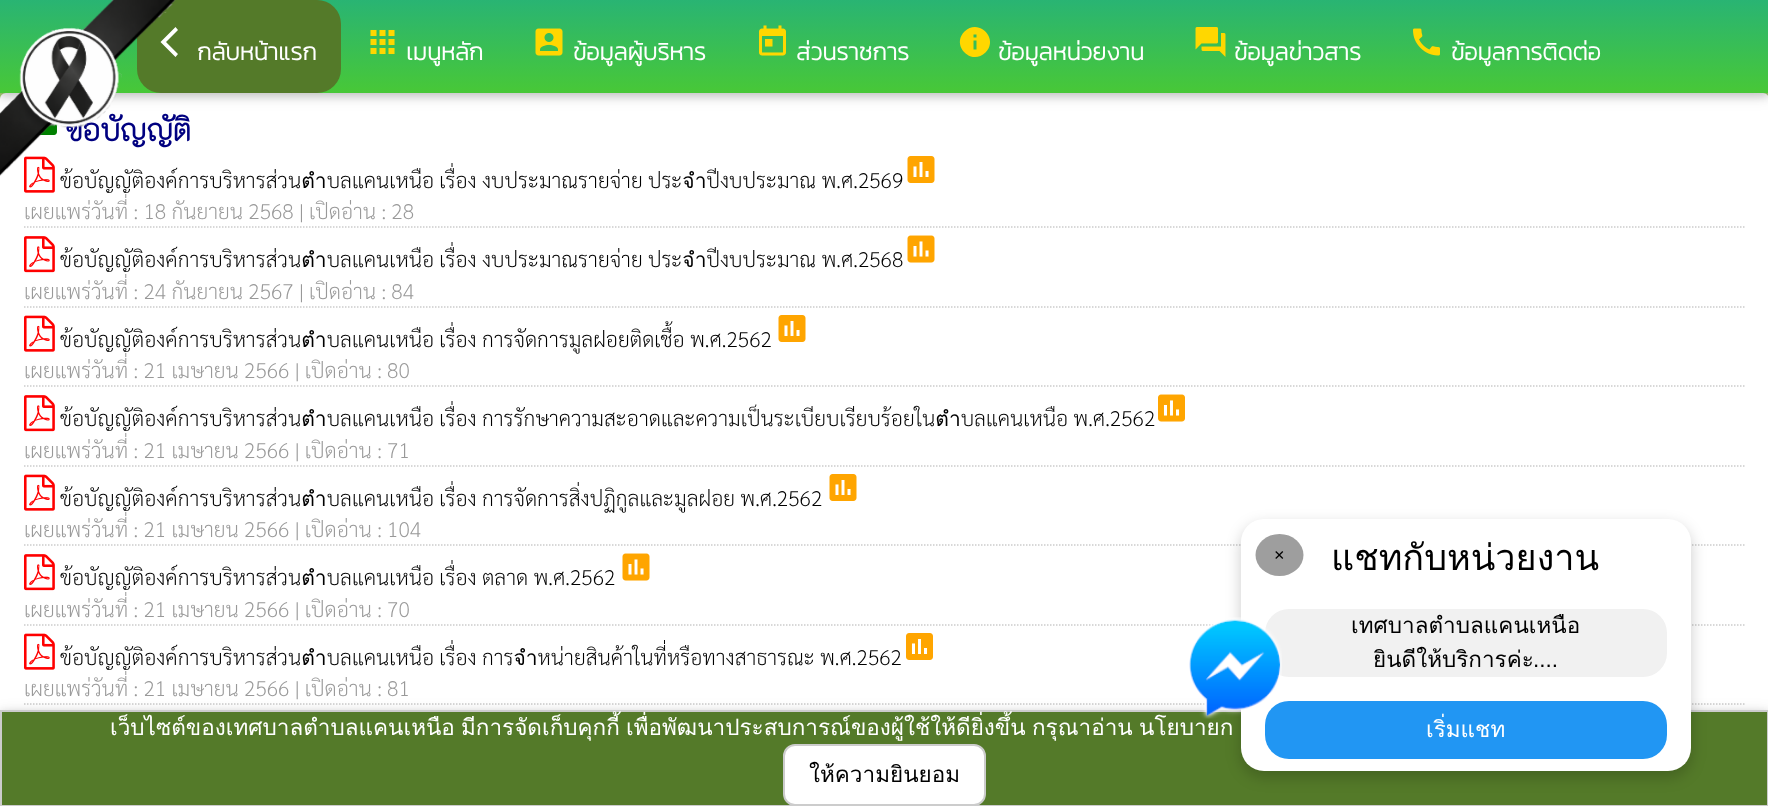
<svg xmlns="http://www.w3.org/2000/svg" width="1768" height="806">
<style>
.a{font:bold 24px Kanit;fill:#fff}
.b{font:bold 30px 'K2D';fill:#000080}
.c{font:200 21px Sarabun;fill:#000}
.d{font:200 21px Sarabun;fill:#999}
.e{font:18px Liberation Sans;fill:#000}
.f{font:36px Loma;fill:#000}
.g{font:22.5px Loma;fill:#000}
.h{font:22.5px Liberation Sans;fill:#000}
.i{font:22.5px Loma;fill:#fff}
</style>
<defs>
<linearGradient id="g1" gradientUnits="userSpaceOnUse" x1="884" y1="0" x2="884" y2="93"><stop offset="0" stop-color="#29b473"/><stop offset="1" stop-color="#48c837"/></linearGradient>
</defs>
<rect width="100%" height="100%" fill="#a2cf6f"/>
<rect fill="#fff" y="93" width="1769" height="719" rx="6"/>
<path fill="#0000001f" filter="blur(7.5px)" d="M0 3h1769v93H0z"/>
<path fill="#00000029" filter="blur(4px)" d="M0 3h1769v93H0z"/>
<path fill="url(#g1)" d="M0 0h1768v93H0z"/>
<rect fill="#547a29" x="137" width="204" height="93" rx="24"/>
<path fill="#fff" d="M178 30l-12 12l12 12l-2.5 3l-15-15l15-15z"/>
<image href="2.png" x="370" y="29" width="25" height="26"/>
<image href="3.png" x="535" y="28" width="28" height="28"/>
<image href="4.png" x="759" y="25" width="27" height="31"/>
<path fill="#ffd700" d="M976.5 37.5v-3h-3v3zm0 12v-9h-3v9zm-12-18c14-14 35 7 21 21c-14 14-35-7-21-21z"/>
<image href="5.png" x="1195" y="27" width="31" height="30"/>
<image href="6.png" x="1413" y="28" width="27" height="28"/>
<image href="7.png" x="39" y="124" width="18" height="11"/>
<image href="8.png" x="24" y="156" width="31" height="37"/>
<image href="9.png" x="907" y="156" width="28" height="27"/>
<path fill="none" stroke="#ccc" stroke-width="1.5" stroke-dasharray="1.5 1.5" d="M24 227h1720.5"/>
<image href="10.png" x="24" y="236" width="31" height="37"/>
<image href="11.png" x="907" y="235" width="28" height="28"/>
<path fill="none" stroke="#ccc" stroke-width="1.5" stroke-dasharray="1.5 1.5" d="M24 307h1720.5"/>
<image href="8.png" x="24" y="315" width="31" height="37"/>
<image href="9.png" x="778" y="315" width="28" height="27"/>
<path fill="none" stroke="#ccc" stroke-width="1.5" stroke-dasharray="1.5 1.5" d="M24 386h1720.5"/>
<image href="10.png" x="24" y="395" width="31" height="37"/>
<image href="12.png" x="1158" y="394" width="27" height="28"/>
<path fill="none" stroke="#ccc" stroke-width="1.5" stroke-dasharray="1.5 1.5" d="M24 466h1720.5"/>
<image href="8.png" x="24" y="474" width="31" height="37"/>
<image href="9.png" x="829" y="474" width="28" height="27"/>
<path fill="none" stroke="#ccc" stroke-width="1.5" stroke-dasharray="1.5 1.5" d="M24 545h1720.5"/>
<image href="10.png" x="24" y="554" width="31" height="37"/>
<image href="11.png" x="622" y="553" width="28" height="28"/>
<path fill="none" stroke="#ccc" stroke-width="1.5" stroke-dasharray="1.5 1.5" d="M24 625h1720.5"/>
<image href="8.png" x="24" y="633" width="31" height="37"/>
<image href="13.png" x="906" y="633" width="27" height="27"/>
<path fill="none" stroke="#ccc" stroke-width="1.5" stroke-dasharray="1.5 1.5" d="M24 704h1720.5"/>
<path fill="#0000001f" filter="blur(7.5px)" d="M0 713h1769v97H0z"/>
<path fill="#00000029" filter="blur(4px)" d="M0 713h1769v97H0z"/>
<path fill="#547a29" stroke="#ccc" stroke-width="2" d="M1 711h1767v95H1z"/>
<rect fill="#00000033" filter="blur(7.5px)" x="1241" y="525" width="450" height="252" rx="23"/>
<rect fill="#fff" x="1241" y="519" width="450" height="252" rx="23"/>
<ellipse fill="#9e9e9e" cx="1279.5" cy="555" rx="24" ry="21"/>
<rect fill="#f1f1f1" x="1265" y="609" width="402" height="68" rx="24"/>
<rect fill="#2196f3" x="1265" y="701" width="402" height="58" rx="24"/>
<rect fill="#fff" stroke="#ccc" stroke-width="2" x="784" y="745" width="201" height="60" rx="11"/>
<text class="a" x="197" y="60">กลับหน้าแรก</text>
<text class="a" x="406" y="60">เมนูหลัก</text>
<text class="a" x="573" y="60">ข้อมูลผู้บริหาร</text>
<text class="a" x="796" y="60">ส่วนราชการ</text>
<text class="a" x="998" y="60">ข้อมูลหน่วยงาน</text>
<text class="a" x="1234" y="60">ข้อมูลข่าวสาร</text>
<text class="a" x="1451" y="60">ข้อมูลการติดต่อ</text>
<text class="b" x="65" y="141">ข้อบัญญัติ</text>
<text class="c" x="60" y="188">ข้อบัญญัติองค์การบริหารส่วนตำบลแคนเหนือ เรื่อง งบประมาณรายจ่าย ประจำปีงบประมาณ พ.ศ.2569</text>
<image href="1.png" x="0" y="0" width="176" height="176"/>
<text class="d" x="24" y="219">เผยแพร่วันที่ : 18 กันยายน 2568 | เปิดอ่าน : 28</text>
<text class="c" x="60" y="267">ข้อบัญญัติองค์การบริหารส่วนตำบลแคนเหนือ เรื่อง งบประมาณรายจ่าย ประจำปีงบประมาณ พ.ศ.2568</text>
<text class="d" x="24" y="299">เผยแพร่วันที่ : 24 กันยายน 2567 | เปิดอ่าน : 84</text>
<text class="c" x="60" y="347">ข้อบัญญัติองค์การบริหารส่วนตำบลแคนเหนือ เรื่อง การจัดการมูลฝอยติดเชื้อ พ.ศ.2562</text>
<text class="d" x="24" y="378">เผยแพร่วันที่ : 21 เมษายน 2566 | เปิดอ่าน : 80</text>
<text class="c" x="60" y="426">ข้อบัญญัติองค์การบริหารส่วนตำบลแคนเหนือ เรื่อง การรักษาความสะอาดและความเป็นระเบียบเรียบร้อยในตำบลแคนเหนือ พ.ศ.2562</text>
<text class="d" x="24" y="458">เผยแพร่วันที่ : 21 เมษายน 2566 | เปิดอ่าน : 71</text>
<text class="c" x="60" y="506">ข้อบัญญัติองค์การบริหารส่วนตำบลแคนเหนือ เรื่อง การจัดการสิ่งปฏิกูลและมูลฝอย พ.ศ.2562</text>
<text class="d" x="24" y="537">เผยแพร่วันที่ : 21 เมษายน 2566 | เปิดอ่าน : 104</text>
<text class="c" x="60" y="585">ข้อบัญญัติองค์การบริหารส่วนตำบลแคนเหนือ เรื่อง ตลาด พ.ศ.2562</text>
<text class="d" x="24" y="617">เผยแพร่วันที่ : 21 เมษายน 2566 | เปิดอ่าน : 70</text>
<text class="c" x="60" y="665">ข้อบัญญัติองค์การบริหารส่วนตำบลแคนเหนือ เรื่อง การจำหน่ายสินค้าในที่หรือทางสาธารณะ พ.ศ.2562</text>
<text class="d" x="24" y="696">เผยแพร่วันที่ : 21 เมษายน 2566 | เปิดอ่าน : 81</text>
<text class="e" x="1274" y="561">×</text>
<text class="f" x="1331" y="570">แชทกับหน่วยงาน</text>
<text class="g" x="1351" y="633">เทศบาลตำบลแคนเหนือ</text>
<text class="g" x="1373" y="667">ยินดีให้บริการค่ะ</text>
<text class="h" x="1533" y="667">....</text>
<text class="i" x="1426" y="737">เริ่มแชท</text>
<text class="i" x="110" y="735">เว็บไซต์ของเทศบาลตำบลแคนเหนือ</text>
<text class="i" x="461" y="735">มีการจัดเก็บคุกกี้</text>
<text class="i" x="626" y="735">เพื่อพัฒนาประสบการณ์ของผู้ใช้ให้ดียิ่งขึ้น</text>
<text class="i" x="1032" y="735">กรุณาอ่าน</text>
<text class="i" x="1139" y="735">นโยบายก</text>
<image href="14.png" x="1189" y="617" width="93" height="102"/>
<text class="g" x="809" y="782">ให้ความยินยอม</text>
</svg>
